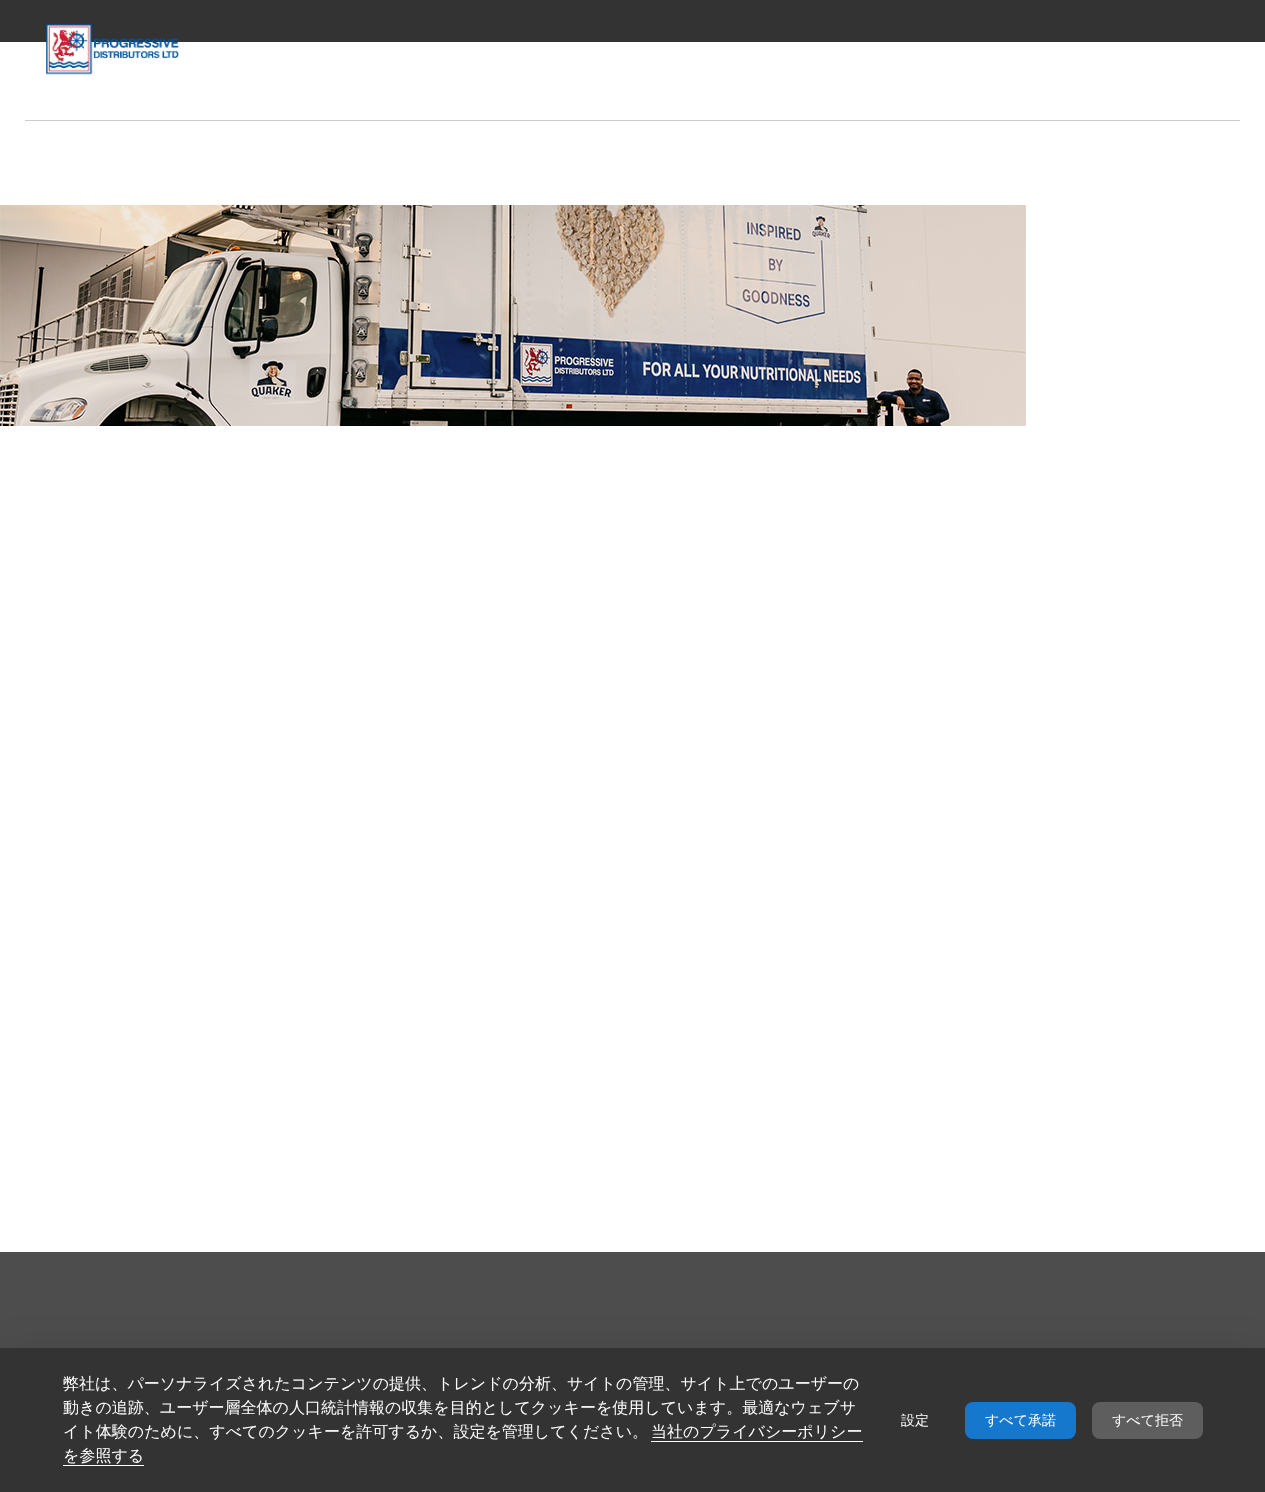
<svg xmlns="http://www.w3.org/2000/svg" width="1265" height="1492">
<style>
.a{font:500 16px WenQuanYi Zen Hei;fill:#fff}
.b{font:500 14px WenQuanYi Zen Hei;fill:#fff}
</style>
<rect width="100%" height="100%" fill="#4d4d4d"/>
<path fill="#333" d="M0 0h1265v42H0z"/>
<path fill="#fff" d="M0 42h1265v1210H0z"/>
<image href="1.png" x="46" y="23" width="133" height="52"/>
<path fill="#ccc" d="M25 120h1215v1H25z"/>
<image href="2.png" x="0" y="205" width="1026" height="221"/>
<path fill="#0000002e" filter="blur(24px)" d="M0 1364h1265v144H0z"/>
<path fill="#333" d="M0 1348h1265v144H0z"/>
<path fill="#fff" d="M651 1441h212v1H651z"/>
<path fill="#fff" d="M63 1465h81v1H63z"/>
<rect fill="#1578cd" x="965" y="1402" width="111" height="37" rx="8"/>
<rect fill="#5e5e5e" x="1092" y="1402" width="111" height="37" rx="8"/>
<text class="a" x="63" y="1389">弊社は、パーソナライズされたコンテンツの提供、トレンドの分析、サイトの管理、サイト上でのユーザーの</text>
<text class="a" x="63" y="1413">動きの追跡、ユーザー層全体の人口統計情報の収集を目的としてクッキーを使用しています。最適なウェブサ</text>
<text class="a" x="63" y="1437">イト体験のために、すべてのクッキーを許可するか、設定を管理してください。</text>
<text class="a" x="651" y="1437">当社のプライバシーポリシー</text>
<text class="a" x="63" y="1461">を参照する</text>
<text class="b" x="901" y="1425">設定</text>
<text class="b" x="985" y="1425">すべて承諾</text>
<text class="b" x="1112" y="1425">すべて拒否</text>
</svg>
